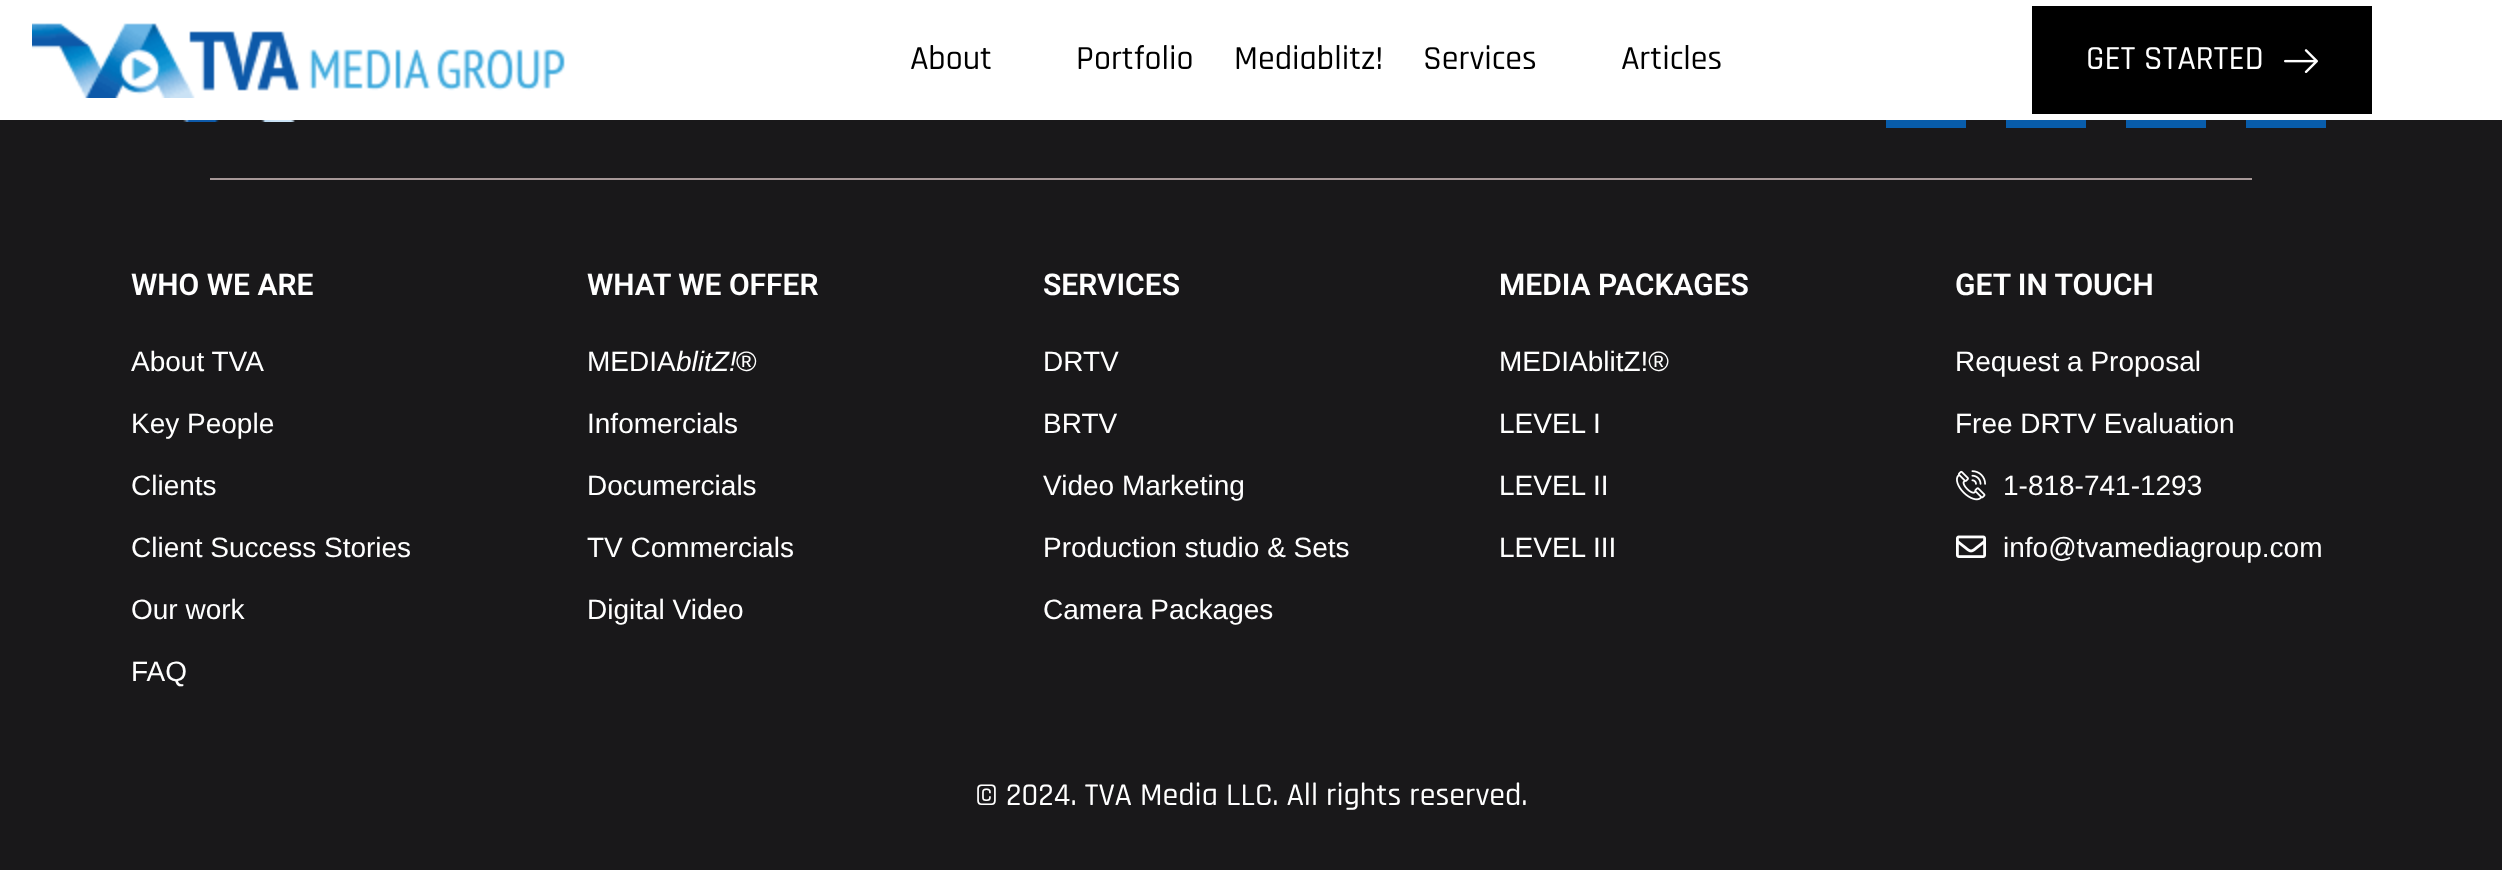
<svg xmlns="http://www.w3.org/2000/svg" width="2502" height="870">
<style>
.a{font:500 34px Rajdhani;fill:#000}
.b{font:500 34px Rajdhani;fill:#fff}
.c{font:600 30px Roboto;fill:#fff}
.d{font:28px Liberation Sans;fill:#fff}
.e{font:italic 28px Liberation Sans;fill:#fff}
.f{font:500 32px Rajdhani;fill:#fff}
</style>
<rect width="100%" height="100%" fill="#19181a"/>
<path fill="#fff" d="M0 0h2502v120H0z"/>
<image href="1.png" x="32" y="23" width="533" height="75"/>
<path fill="#000" d="M2032 6h340v108H2032z"/>
<image href="2.png" x="2284" y="49" width="34" height="24"/>
<image href="3.png" x="183" y="120" width="112" height="2"/>
<path fill="#085caa" d="M1886 120h80v8H1886z"/>
<path fill="#085caa" d="M2006 120h80v8H2006z"/>
<path fill="#085caa" d="M2126 120h80v8H2126z"/>
<path fill="#085caa" d="M2246 120h80v8H2246z"/>
<path fill="#a79898" d="M210 178h2042v2H210z"/>
<image href="4.png" x="1956" y="470" width="30" height="31"/>
<image href="5.png" x="1956" y="535" width="30" height="23"/>
<text class="a" x="910" y="69">About</text>
<text class="a" x="1076" y="69">Portfolio</text>
<text class="a" x="1234" y="69">Mediablitz!</text>
<text class="a" x="1423" y="69">Services</text>
<text class="a" x="1621" y="69">Articles</text>
<text class="b" x="2086" y="69">GET STARTED</text>
<text class="c" x="131" y="295">WHO WE ARE</text>
<text class="d" x="131" y="371">About TVA</text>
<text class="d" x="131" y="433">Key People</text>
<text class="d" x="131" y="495">Clients</text>
<text class="d" x="131" y="557">Client Success Stories</text>
<text class="d" x="131" y="619">Our work</text>
<text class="d" x="131" y="681">FAQ</text>
<text class="c" x="587" y="295">WHAT WE OFFER</text>
<text class="d" x="587" y="371">MEDIA</text>
<text class="e" x="676" y="371">blitZ!</text>
<text class="d" x="736" y="371">®</text>
<text class="d" x="587" y="433">Infomercials</text>
<text class="d" x="587" y="495">Documercials</text>
<text class="d" x="587" y="557">TV Commercials</text>
<text class="d" x="587" y="619">Digital Video</text>
<text class="c" x="1043" y="295">SERVICES</text>
<text class="d" x="1043" y="371">DRTV</text>
<text class="d" x="1043" y="433">BRTV</text>
<text class="d" x="1043" y="495">Video Marketing</text>
<text class="d" x="1043" y="557">Production studio &amp; Sets</text>
<text class="d" x="1043" y="619">Camera Packages</text>
<text class="c" x="1499" y="295">MEDIA PACKAGES</text>
<text class="d" x="1499" y="371">MEDIAblitZ!®</text>
<text class="d" x="1499" y="433">LEVEL I</text>
<text class="d" x="1499" y="495">LEVEL II</text>
<text class="d" x="1499" y="557">LEVEL III</text>
<text class="c" x="1955" y="295">GET IN TOUCH</text>
<text class="d" x="1955" y="371">Request a Proposal</text>
<text class="d" x="1955" y="433">Free DRTV Evaluation</text>
<text class="d" x="2003" y="495">1-818-741-1293</text>
<text class="d" x="2003" y="557">info@tvamediagroup.com</text>
<text class="f" x="975" y="805">© 2024. TVA Media LLC. All rights reserved.</text>
</svg>
